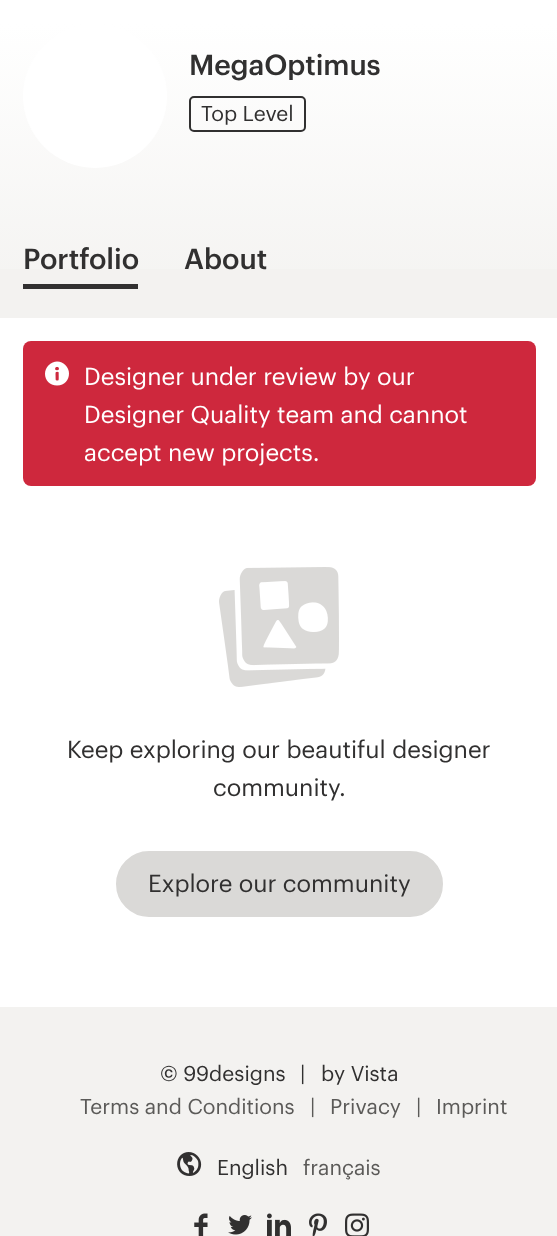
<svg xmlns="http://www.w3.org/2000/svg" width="557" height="1236">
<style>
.a{font:500 28.5px Graphik;letter-spacing:-0.1px;fill:#313030}
.b{font:21px Graphik;fill:#313030}
.c{font:500 28.5px Graphik;fill:#313030}
.d{font:24px Graphik;fill:#fff}
.e{font:24px Graphik;fill:#313030}
.f{font:21px Graphik;fill:#5b5a58}
</style>
<defs>
<linearGradient id="g1" gradientUnits="userSpaceOnUse" x1="279" y1="24" x2="279" y2="318"><stop offset="0" stop-color="#fff"/><stop offset="1" stop-color="#f3f2f0"/></linearGradient>
</defs>
<rect width="100%" height="100%" fill="#f3f2f0"/>
<path fill="#fff" d="M0 0h557v24H0z"/>
<path fill="url(#g1)" d="M0 24h557v245H0z"/>
<circle fill="#fff" cx="95" cy="96" r="72"/>
<rect fill="none" stroke="#313030" stroke-width="2" x="190" y="97" width="115" height="34" rx="4"/>
<path fill="#313030" d="M23 284h115v5H23z"/>
<path fill="#fff" d="M0 318h557v689H0z"/>
<rect fill="#ce283d" x="23" y="341" width="513" height="145" rx="8"/>
<image href="1.png" x="45" y="361" width="24" height="25"/>
<image href="2.png" x="219" y="567" width="120" height="120"/>
<rect fill="#dad9d7" stroke="#dad9d7" stroke-width="2" x="117" y="852" width="325" height="64" rx="32"/>
<image href="3.png" x="177" y="1152" width="25" height="24"/>
<image href="4.png" x="194" y="1213" width="14" height="23"/>
<image href="5.png" x="228" y="1215" width="24" height="20"/>
<image href="6.png" x="267" y="1213" width="24" height="23"/>
<image href="7.png" x="309" y="1213" width="18" height="23"/>
<image href="8.png" x="345" y="1213" width="24" height="23"/>
<text class="a" x="189" y="75">MegaOptimus</text>
<text class="b" x="201" y="121">Top Level</text>
<text class="c" x="23" y="269">Portfolio</text>
<text class="c" x="184" y="269">About</text>
<text class="d" x="84" y="385">Designer under review by our</text>
<text class="d" x="84" y="423">Designer Quality team and cannot</text>
<text class="d" x="84" y="461">accept new projects.</text>
<text class="e" x="67" y="758">Keep exploring our beautiful designer</text>
<text class="e" x="213" y="796">community.</text>
<text class="e" x="148" y="892">Explore our community</text>
<text class="b" x="160" y="1081">© 99designs</text>
<text class="b" x="300" y="1081">|</text>
<text class="b" x="321" y="1081">by Vista</text>
<text class="f" x="80" y="1114">Terms and Conditions</text>
<text class="f" x="310" y="1114">|</text>
<text class="f" x="330" y="1114">Privacy</text>
<text class="f" x="416" y="1114">|</text>
<text class="f" x="436" y="1114">Imprint</text>
<text class="b" x="217" y="1175">English</text>
<text class="f" x="303" y="1175">français</text>
</svg>
